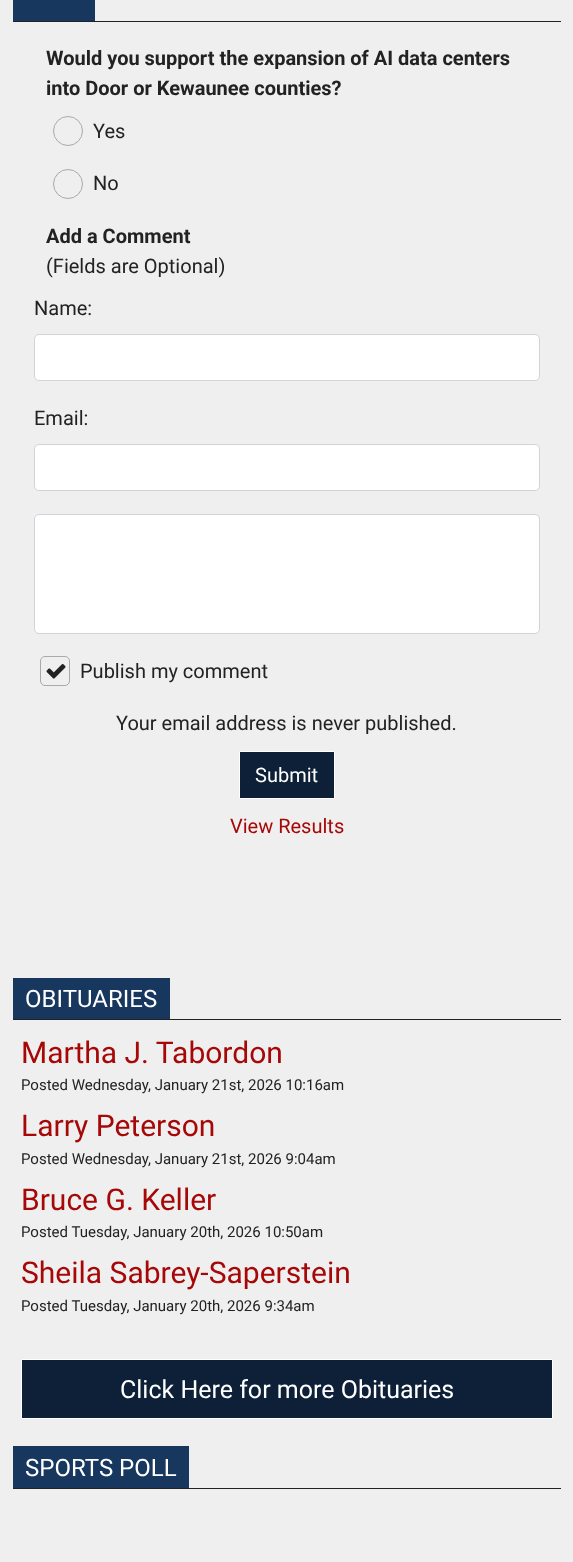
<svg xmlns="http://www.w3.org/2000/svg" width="573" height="1562">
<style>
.a{font:bold 20px Roboto;fill:#222}
.b{font:20px Roboto;fill:#222}
.c{font:20px Roboto;fill:#fff}
.d{font:20px Roboto;fill:#a60707}
.e{font:24px Roboto;fill:#fff}
.f{font:30px Roboto;fill:#a60707}
.g{font:15px Roboto;fill:#222}
.h{font:25px Roboto;fill:#fff}
</style>
<rect width="100%" height="100%" fill="#efefef"/>
<path fill="#222" d="M13 21h548v1H13z"/>
<path fill="#17375e" d="M13 0h82v21H13z"/>
<circle fill="none" stroke="#a9a9a9" cx="68" cy="131" r="14.5"/>
<circle fill="none" stroke="#a9a9a9" cx="68" cy="184" r="14.5"/>
<rect fill="#fff" stroke="#ced4da" x="34.5" y="334.5" width="505" height="46" rx="4.5"/>
<rect fill="#fff" stroke="#ced4da" x="34.5" y="444.5" width="505" height="46" rx="4.5"/>
<rect fill="#fff" stroke="#ced4da" x="34.5" y="514.5" width="505" height="119" rx="4.5"/>
<rect fill="none" stroke="#a9a9a9" x="40.5" y="656.5" width="29" height="29" rx="4.5"/>
<image href="1.png" x="46" y="664" width="20" height="15"/>
<path fill="#0d2037" stroke="#fff" d="M239.5 751.5h95v47H239.5z"/>
<path fill="#222" d="M13 1019h548v1H13z"/>
<path fill="#17375e" d="M13 978h157v41H13z"/>
<path fill="#0d2037" stroke="#fff" d="M21.5 1359.5h531v59H21.5z"/>
<path fill="#222" d="M13 1488h548v1H13z"/>
<path fill="#17375e" d="M13 1446h176v42H13z"/>
<text class="a" x="46" y="65">Would you support the expansion of AI data centers</text>
<text class="a" x="46" y="95">into Door or Kewaunee counties?</text>
<text class="b" x="93" y="138">Yes</text>
<text class="b" x="93" y="190">No</text>
<text class="a" x="46" y="243">Add a Comment</text>
<text class="b" x="46" y="273">(Fields are Optional)</text>
<text class="b" x="34" y="315">Name:</text>
<text class="b" x="34" y="425">Email:</text>
<text class="b" x="80" y="678">Publish my comment</text>
<text class="b" x="116" y="730">Your email address is never published.</text>
<text class="c" x="255" y="782">Submit</text>
<text class="d" x="230" y="833">View Results</text>
<text class="e" x="25" y="1007">OBITUARIES</text>
<text class="f" x="21" y="1063">Martha J. Tabordon</text>
<text class="g" x="21" y="1090">Posted Wednesday, January 21st, 2026 10:16am</text>
<text class="f" x="21" y="1136">Larry Peterson</text>
<text class="g" x="21" y="1164">Posted Wednesday, January 21st, 2026 9:04am</text>
<text class="f" x="21" y="1210">Bruce G. Keller</text>
<text class="g" x="21" y="1237">Posted Tuesday, January 20th, 2026 10:50am</text>
<text class="f" x="21" y="1283">Sheila Sabrey-Saperstein</text>
<text class="g" x="21" y="1311">Posted Tuesday, January 20th, 2026 9:34am</text>
<text class="h" x="120" y="1398">Click Here for more Obituaries</text>
<text class="e" x="25" y="1476">SPORTS POLL</text>
</svg>
